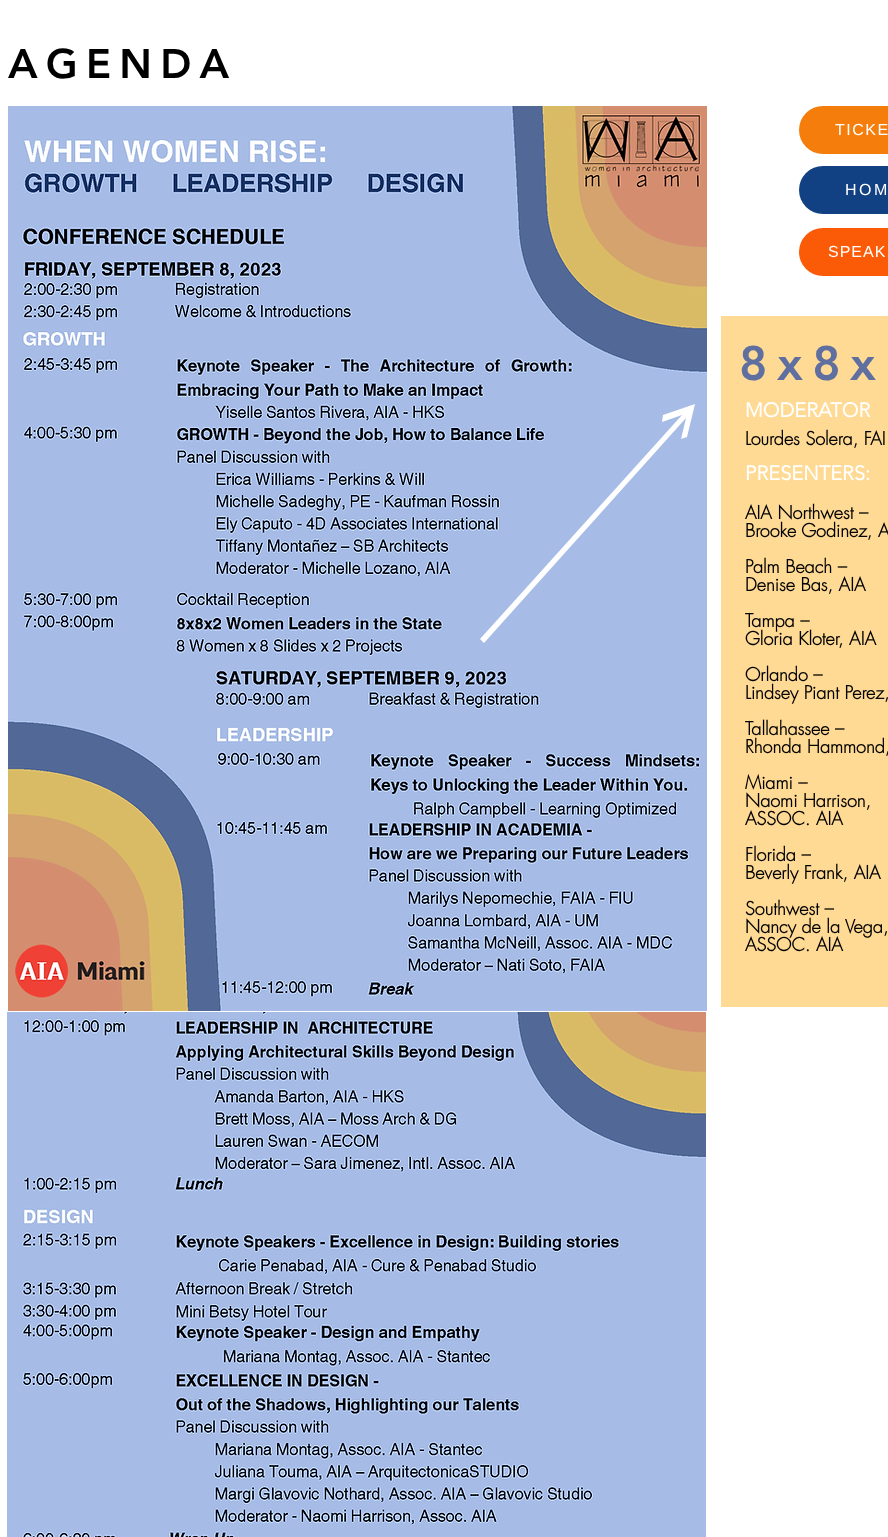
<svg xmlns="http://www.w3.org/2000/svg" width="888" height="1537">
<style>
.a{font:900 41px 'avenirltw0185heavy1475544';letter-spacing:8.25px;fill:#000}
.b{font:16px Liberation Sans;letter-spacing:1.5px;fill:#fff}
.c{font:16px Liberation Sans;letter-spacing:2.5px;fill:#fff}
.d{font:16px Liberation Sans;letter-spacing:1px;fill:#fff}
.e{font:900 48px 'avenirltw0185heavy1475544';letter-spacing:9.5px;fill:#5f70a0}
.f{font:bold 20px 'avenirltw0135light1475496';fill:#fff}
.g{font:bold 18px futura;fill:#000}
</style>
<rect width="100%" height="100%" fill="#fff"/>
<image href="1.png" x="8" y="106" width="699" height="905"/>
<rect fill="#f57d0b" x="799" y="106" width="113" height="48" rx="24"/>
<rect fill="#114183" x="799" y="166" width="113" height="48" rx="24"/>
<rect fill="#fb5a06" x="799" y="228" width="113" height="48" rx="24"/>
<path fill="#ffda94" d="M721 316h167v691H721z"/>
<path fill="#fff" d="M687 437l8-33l-32 11l-1 7l20-7l-202 224l4 4l202-225l-5 21z"/>
<image href="2.png" x="7" y="1012" width="699" height="525"/>
<text class="a" x="8" y="78">AGENDA</text>
<text class="b" x="835" y="135">TICKE</text>
<text class="c" x="845" y="195">HOM</text>
<text class="d" x="828" y="257">SPEAK</text>
<text class="e" x="739" y="380">8x8x</text>
<text class="f" x="745" y="417">MODERATOR</text>
<text class="g" x="745" y="445">Lourdes Solera, FAI</text>
<text class="f" x="745" y="480">PRESENTERS:</text>
<text class="g" x="745" y="519">AIA Northwest –</text>
<text class="g" x="745" y="537">Brooke Godinez, A</text>
<text class="g" x="745" y="573">Palm Beach –</text>
<text class="g" x="745" y="591">Denise Bas, AIA</text>
<text class="g" x="745" y="627">Tampa –</text>
<text class="g" x="745" y="645">Gloria Kloter, AIA</text>
<text class="g" x="745" y="681">Orlando –</text>
<text class="g" x="745" y="699">Lindsey Piant Perez,</text>
<text class="g" x="745" y="735">Tallahassee –</text>
<text class="g" x="745" y="753">Rhonda Hammond,</text>
<text class="g" x="745" y="789">Miami –</text>
<text class="g" x="745" y="807">Naomi Harrison,</text>
<text class="g" x="745" y="825">ASSOC. AIA</text>
<text class="g" x="745" y="861">Florida –</text>
<text class="g" x="745" y="879">Beverly Frank, AIA</text>
<text class="g" x="745" y="915">Southwest –</text>
<text class="g" x="745" y="933">Nancy de la Vega,</text>
<text class="g" x="745" y="951">ASSOC. AIA</text>
</svg>
